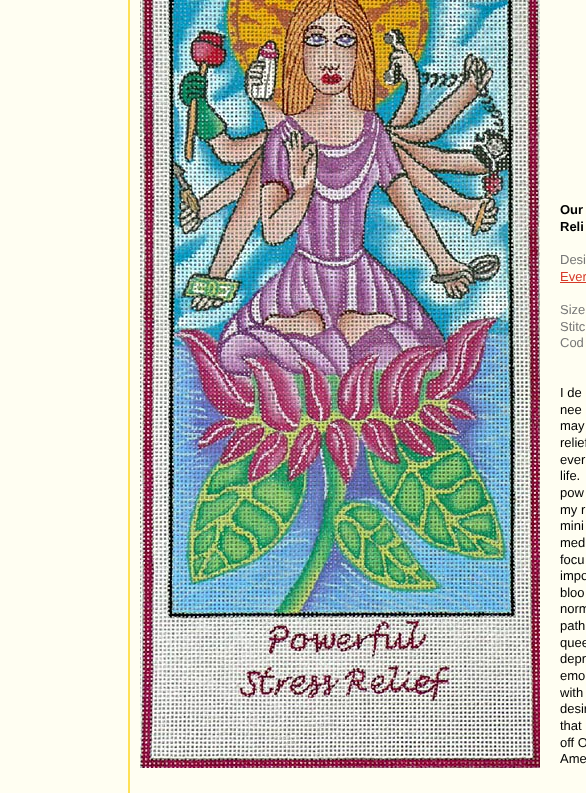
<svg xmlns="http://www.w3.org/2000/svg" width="586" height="793">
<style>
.a{font:bold 13px Liberation Sans;fill:#000}
.b{font:13px Liberation Sans;fill:#777}
.c{font:13px Liberation Sans;fill:#d63928}
.d{font:13px Liberation Sans;fill:#000}
</style>
<rect width="100%" height="100%" fill="#fff"/>
<image href="1.png" x="0" y="0" width="586" height="793"/>
<image href="2.png" x="140" y="0" width="400" height="768"/>
<path fill="#d63928" d="M560 282h26v1H560z"/>
<text class="a" x="560" y="214">Our</text>
<text class="a" x="560" y="231">Reli</text>
<text class="b" x="560" y="264">Desi</text>
<text class="c" x="560" y="281">Ever</text>
<text class="b" x="560" y="314">Size</text>
<text class="b" x="560" y="331">Stitc</text>
<text class="b" x="560" y="347">Cod</text>
<text class="d" x="560" y="397">I de</text>
<text class="d" x="560" y="414">nee</text>
<text class="d" x="560" y="430">may</text>
<text class="d" x="560" y="447">relief</text>
<text class="d" x="560" y="464">ever</text>
<text class="d" x="560" y="480">life.</text>
<text class="d" x="560" y="497">pow</text>
<text class="d" x="560" y="514">my r</text>
<text class="d" x="560" y="530">mini</text>
<text class="d" x="560" y="547">med</text>
<text class="d" x="560" y="564">focu</text>
<text class="d" x="560" y="580">impo</text>
<text class="d" x="560" y="597">bloo</text>
<text class="d" x="560" y="613">norm</text>
<text class="d" x="560" y="630">path</text>
<text class="d" x="560" y="647">quee</text>
<text class="d" x="560" y="663">depr</text>
<text class="d" x="560" y="680">emo</text>
<text class="d" x="560" y="697">with</text>
<text class="d" x="560" y="713">desir</text>
<text class="d" x="560" y="730">that</text>
<text class="d" x="560" y="747">off O</text>
<text class="d" x="560" y="763">Ame</text>
</svg>
